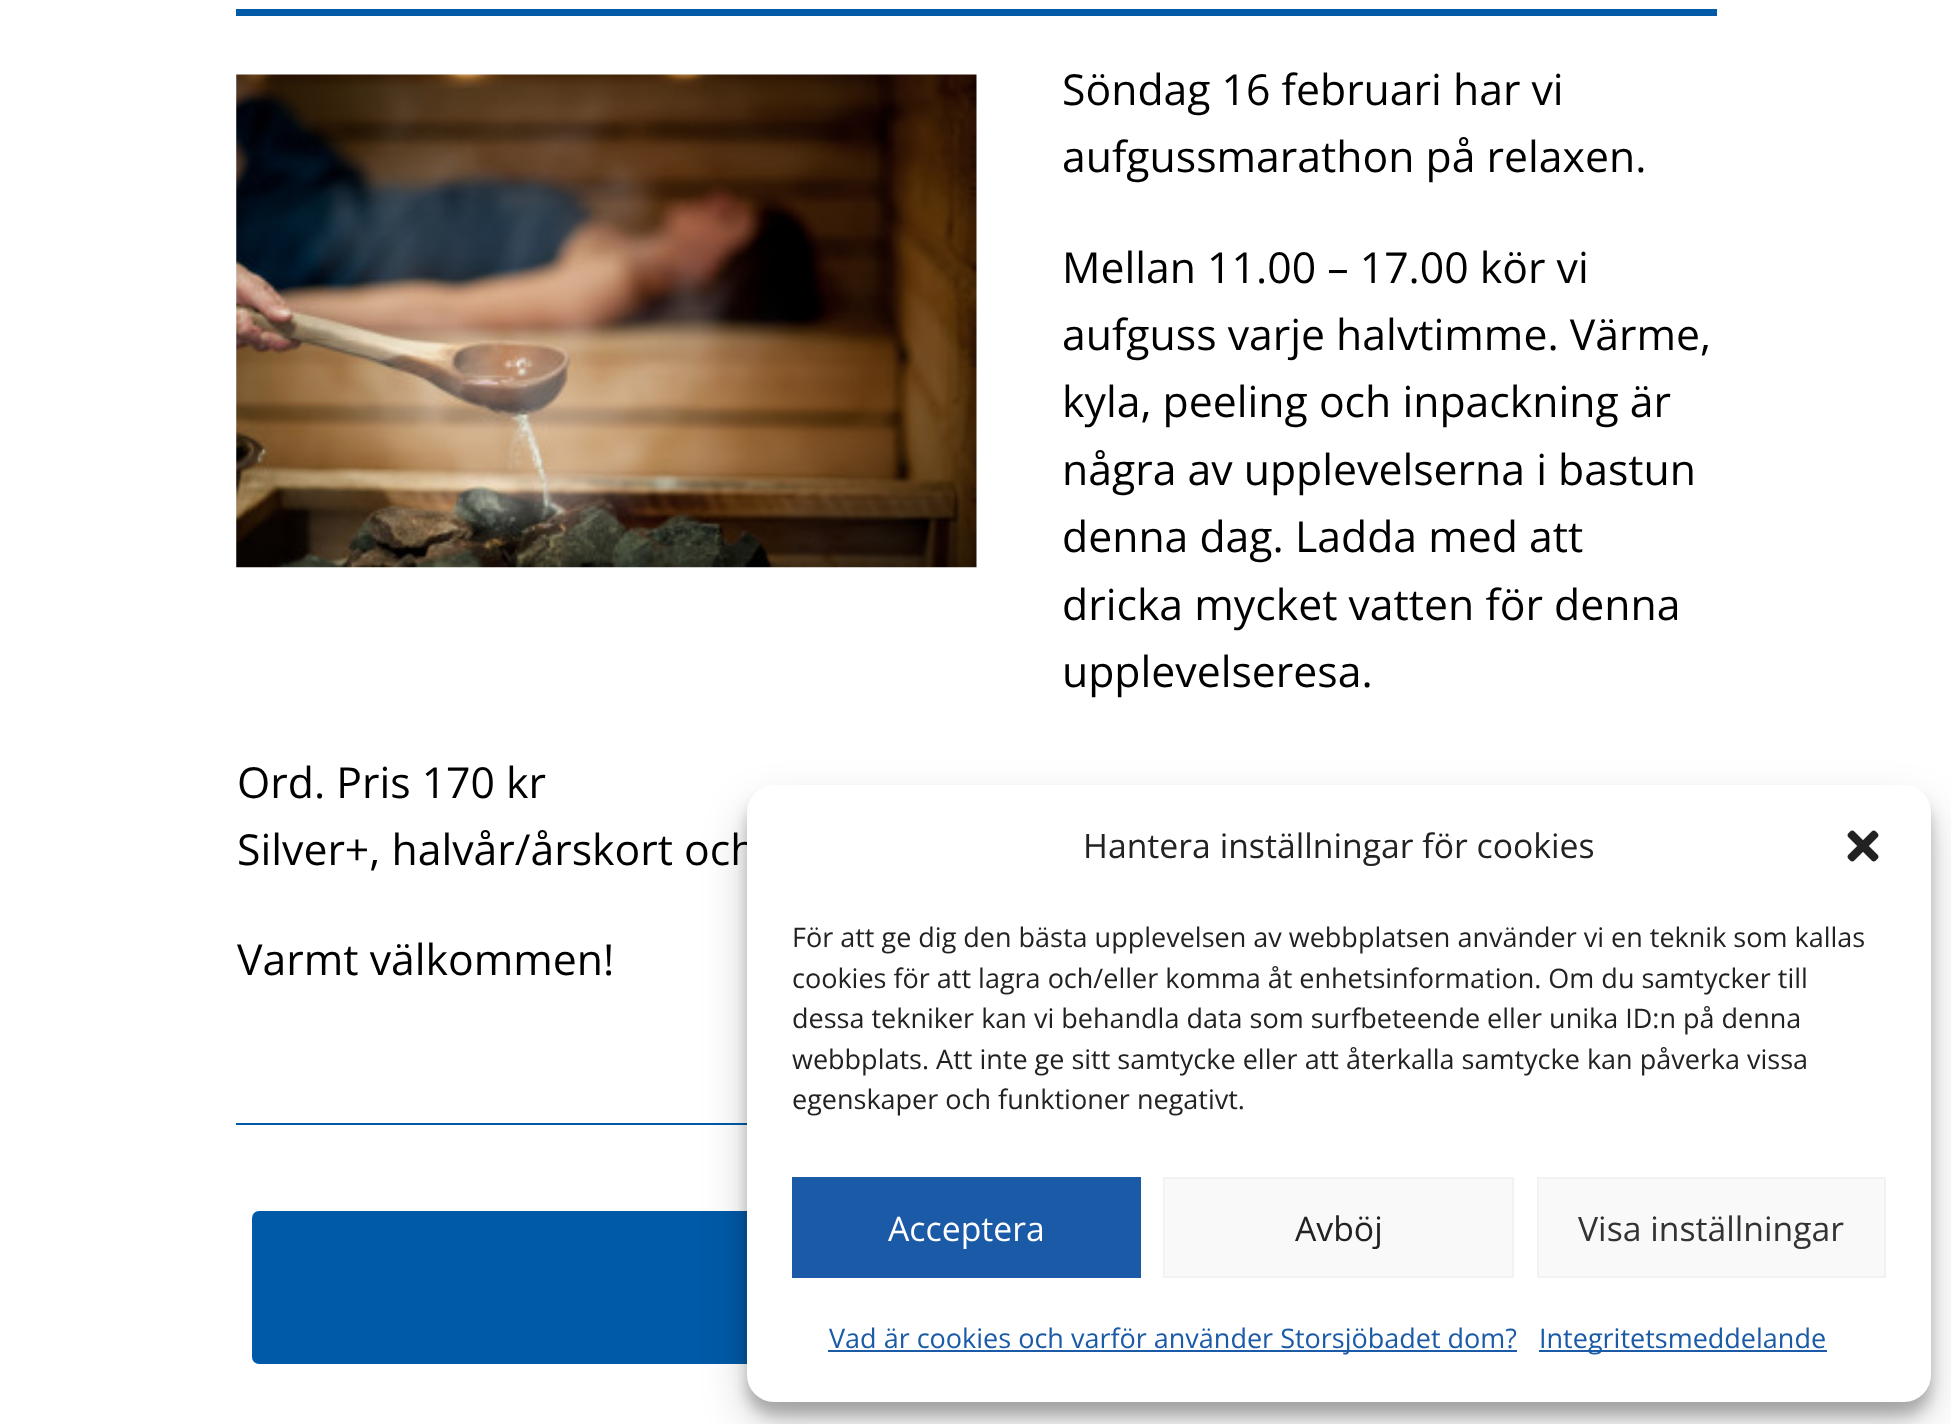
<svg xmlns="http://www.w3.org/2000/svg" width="1951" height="1424">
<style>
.a{font:42.75px Open Sans;fill:#000}
.b{font:33.75px Open Sans;fill:#222}
.c{font:27px Open Sans;fill:#222}
.d{font:33.75px Open Sans;fill:#fff}
.e{font:33.75px Open Sans;fill:#333}
.f{font:27px Open Sans;fill:#1a5aa7}
</style>
<rect width="100%" height="100%" fill="#fff"/>
<path fill="#005aa7" d="M236 9h1481v7H236z"/>
<image href="1.png" x="236" y="74" width="741" height="494"/>
<path fill="#005aa7" d="M236 1123h511v2H236z"/>
<rect fill="#005aa7" x="252" y="1211" width="1449" height="153" rx="7"/>
<rect fill="#0000003b" filter="blur(7px)" x="747" y="799" width="1184" height="616" rx="27"/>
<rect fill="#00000030" filter="blur(22.5px)" x="747" y="808" width="1184" height="616" rx="27"/>
<text class="a" x="1062" y="105">Söndag 16 februari har vi</text>
<text class="a" x="1062" y="172">aufgussmarathon på relaxen.</text>
<text class="a" x="1062" y="283">Mellan 11.00 – 17.00 kör vi</text>
<text class="a" x="1062" y="350">aufguss varje halvtimme. Värme,</text>
<text class="a" x="1062" y="417">kyla, peeling och inpackning är</text>
<text class="a" x="1062" y="485">några av upplevelserna i bastun</text>
<text class="a" x="1062" y="552">denna dag. Ladda med att</text>
<text class="a" x="1062" y="620">dricka mycket vatten för denna</text>
<text class="a" x="1062" y="687">upplevelseresa.</text>
<text class="a" x="237" y="798">Ord. Pris 170 kr</text>
<text class="a" x="237" y="865">Silver+, halvår/årskort och</text>
<text class="a" x="237" y="975">Varmt välkommen!</text>
<rect fill="#fff" x="747" y="785" width="1184" height="617" rx="27"/>
<text class="b" x="1083" y="858">Hantera inställningar för cookies</text>
<image href="2.png" x="1847" y="830" width="32" height="32"/>
<text class="c" x="792" y="947">För att ge dig den bästa upplevelsen av webbplatsen använder vi en teknik som kallas</text>
<text class="c" x="792" y="988">cookies för att lagra och/eller komma åt enhetsinformation. Om du samtycker till</text>
<text class="c" x="792" y="1028">dessa tekniker kan vi behandla data som surfbeteende eller unika ID:n på denna</text>
<text class="c" x="792" y="1069">webbplats. Att inte ge sitt samtycke eller att återkalla samtycke kan påverka vissa</text>
<text class="c" x="792" y="1109">egenskaper och funktioner negativt.</text>
<path fill="#1a5aa7" d="M792 1177h349v101H792z"/>
<text class="d" x="888" y="1241">Acceptera</text>
<path fill="#f9f9f9" stroke="#f2f2f2" stroke-width="2" d="M1164 1178h349v99H1164z"/>
<text class="b" x="1295" y="1241">Avböj</text>
<path fill="#f9f9f9" stroke="#f2f2f2" stroke-width="2" d="M1538 1178h347v99H1538z"/>
<text class="e" x="1578" y="1241">Visa inställningar</text>
<path fill="#1a5aa7" d="M828 1350h689v2H828z"/>
<text class="f" x="829" y="1348">Vad är cookies och varför använder Storsjöbadet dom?</text>
<path fill="#1a5aa7" d="M1539 1350h288v2H1539z"/>
<text class="f" x="1539" y="1348">Integritetsmeddelande</text>
</svg>
